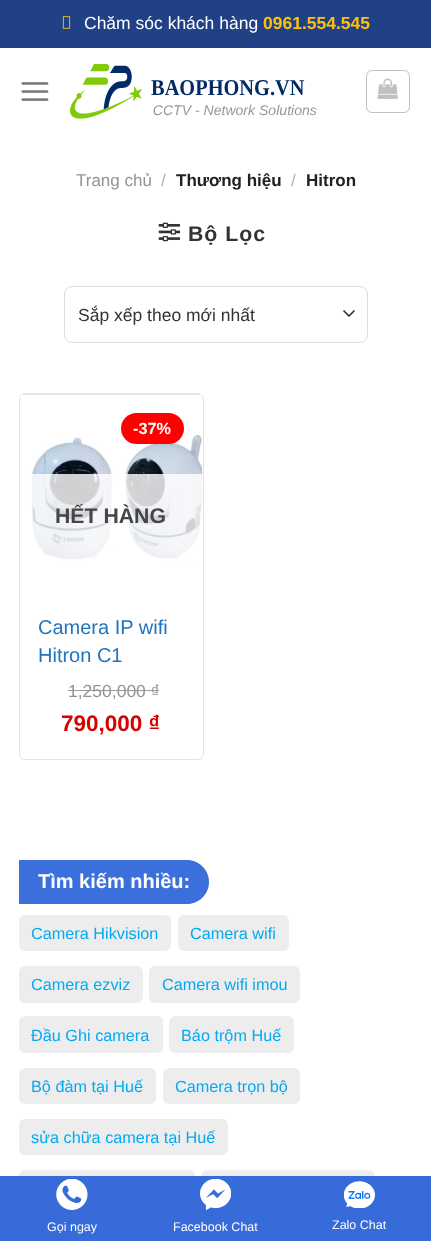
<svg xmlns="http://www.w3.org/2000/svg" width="431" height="1241">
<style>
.a{font:17.5px Liberation Sans;fill:#fff}
.b{font:bold 17.5px Liberation Sans;fill:#ffc107}
.c{font:17px Liberation Sans;fill:#949494}
.d{font:17px Liberation Sans;fill:#b2b2b2}
.e{font:bold 17px Liberation Sans;fill:#222}
.f{font:bold 21.25px Liberation Sans;letter-spacing:1px;fill:#333}
.g{font:17.5px Liberation Sans;fill:#333}
.h{font:bold 16.25px Liberation Sans;fill:#fff}
.i{font:bold 21.25px Liberation Sans;fill:#454545}
.j{font:20px Liberation Sans;fill:#1e73be}
.k{font:17.5px Liberation Sans;fill:#949494}
.l{font:bold 22.5px Liberation Sans;fill:#db0000}
.m{font:bold 20px Liberation Sans;fill:#fff}
.n{font:16.25px Liberation Sans;fill:#03a9f4}
.o{font:12.5px Liberation Sans;fill:#fff}
</style>
<rect width="100%" height="100%" fill="#fff"/>
<path fill="#204186" d="M0 0h431v48H0z"/>
<image href="1.png" x="62" y="16" width="9" height="13"/>
<image href="2.png" x="21" y="82" width="28" height="19"/>
<image href="3.png" x="70" y="64" width="247" height="55"/>
<rect fill="none" stroke="#c0c0c0" x="366.5" y="70.5" width="43" height="42" rx="5.5"/>
<image href="4.png" x="377" y="78" width="21" height="21"/>
<image href="5.png" x="158" y="222" width="22" height="20"/>
<path fill="none" stroke="#333" stroke-width="1.7" stroke-linecap="round" stroke-linejoin="round" d="M344 311l5 5l5-5"/>
<rect fill="none" stroke="#ddd" x="64.5" y="286.5" width="303" height="56" rx="7.5"/>
<rect fill="none" stroke="#e3e3e3" x="19.5" y="393.5" width="184" height="366" rx="5.5"/>
<image href="6.png" x="20" y="394" width="183" height="170"/>
<rect fill="#f00" x="121" y="413" width="63" height="31" rx="15.5"/>
<path fill="#ffffffcf" d="M29 474h174v87H29z"/>
<path fill="#3b6fdb" d="M19 860h168c12 0 22 10 22 22c0 12-10 22-22 22h-168z"/>
<rect fill="#ededed" x="19" y="915" width="152" height="36" rx="6"/>
<rect fill="#ededed" x="178" y="915" width="111" height="36" rx="6"/>
<rect fill="#ededed" x="19" y="966" width="124" height="37" rx="6"/>
<rect fill="#ededed" x="149" y="966" width="151" height="37" rx="6"/>
<rect fill="#ededed" x="19" y="1016" width="144" height="37" rx="6"/>
<rect fill="#ededed" x="169" y="1016" width="125" height="37" rx="6"/>
<rect fill="#ededed" x="19" y="1068" width="137" height="36" rx="6"/>
<rect fill="#ededed" x="163" y="1068" width="137" height="36" rx="6"/>
<rect fill="#ededed" x="19" y="1119" width="209" height="36" rx="6"/>
<rect fill="#ededed" x="19" y="1170" width="176" height="36" rx="6"/>
<rect fill="#ededed" x="201" y="1170" width="174" height="36" rx="6"/>
<path fill="#366bd9" d="M0 1176h431v65H0z"/>
<image href="7.png" x="56" y="1179" width="32" height="31"/>
<image href="8.png" x="200" y="1179" width="31" height="31"/>
<image href="9.png" x="344" y="1181" width="31" height="27"/>
<text class="a" x="84" y="29">Chăm sóc khách hàng</text>
<text class="b" x="263" y="29">0961.554.545</text>
<text class="c" x="76" y="186">Trang chủ</text>
<text class="d" x="161" y="186">/</text>
<text class="e" x="176" y="186">Thương hiệu</text>
<text class="d" x="291" y="186">/</text>
<text class="e" x="306" y="186">Hitron</text>
<text class="f" x="188" y="241">Bộ Lọc</text>
<text class="g" x="78" y="321">Sắp xếp theo mới nhất</text>
<text class="h" x="133" y="434">-37%</text>
<text class="i" x="55" y="523">HẾT HÀNG</text>
<text class="j" x="38" y="634">Camera IP wifi</text>
<text class="j" x="38" y="662">Hitron C1</text>
<text class="k" x="68" y="697">1,250,000 ₫</text>
<path fill="#999" d="M68 690h91v1H68z"/>
<text class="l" x="61" y="731">790,000 ₫</text>
<text class="m" x="38" y="888">Tìm kiếm nhiều:</text>
<text class="n" x="31" y="939">Camera Hikvision</text>
<text class="n" x="190" y="939">Camera wifi</text>
<text class="n" x="31" y="990">Camera ezviz</text>
<text class="n" x="162" y="990">Camera wifi imou</text>
<text class="n" x="31" y="1041">Đầu Ghi camera</text>
<text class="n" x="181" y="1041">Báo trộm Huế</text>
<text class="n" x="31" y="1092">Bộ đàm tại Huế</text>
<text class="n" x="175" y="1092">Camera trọn bộ</text>
<text class="n" x="31" y="1143">sửa chữa camera tại Huế</text>
<text class="o" x="47" y="1231">Gọi ngay</text>
<text class="o" x="173" y="1231">Facebook Chat</text>
<text class="o" x="332" y="1229">Zalo Chat</text>
</svg>
